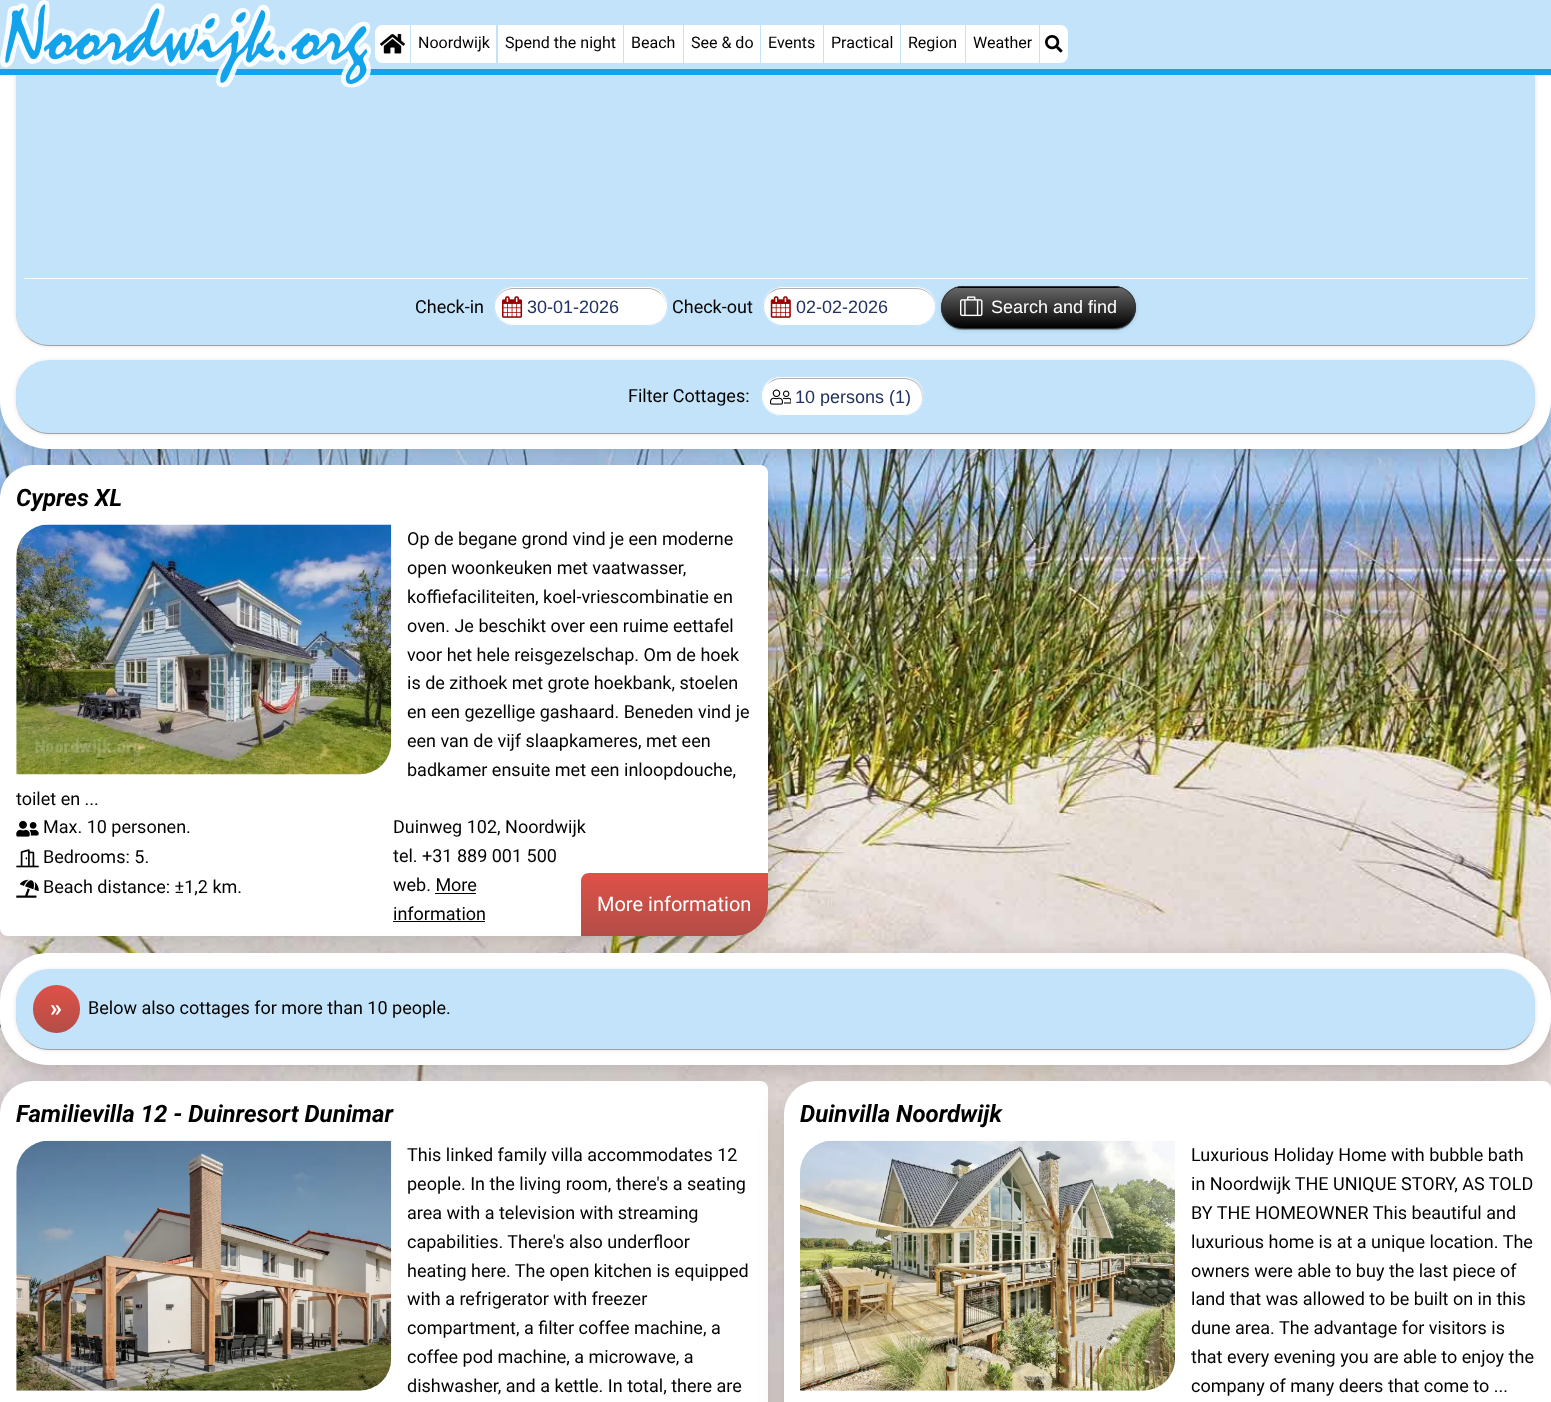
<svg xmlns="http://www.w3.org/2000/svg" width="1551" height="1402">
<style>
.a{font:16px Roboto;fill:#000}
.b{font:18px Roboto;fill:#000}
.c{font:18px Liberation Sans;fill:#223260}
.d{font:18px Liberation Sans;fill:#fff}
.e{font:italic bold 24px Roboto;fill:#000}
.f{font:20px Roboto;fill:#fff}
.g{font:bold 24px Roboto;fill:#fff}
</style>
<defs>
<clipPath id="clip1"><rect x="941" y="286" width="195" height="43" rx="21.5"/></clipPath>
<linearGradient id="g1" gradientUnits="userSpaceOnUse" x1="1039" y1="248" x2="1039" y2="288"><stop offset="0" stop-color="#666"/><stop offset="1" stop-color="#000"/></linearGradient>
<linearGradient id="g2" gradientUnits="userSpaceOnUse" x1="1039" y1="288" x2="1039" y2="328"><stop offset="0" stop-color="#666"/><stop offset="1" stop-color="#000"/></linearGradient>
<linearGradient id="g3" gradientUnits="userSpaceOnUse" x1="674" y1="873" x2="674" y2="936"><stop offset="0" stop-color="#de5147"/><stop offset="1" stop-color="#b34e47"/></linearGradient>
<linearGradient id="g4" gradientUnits="userSpaceOnUse" x1="56" y1="985" x2="56" y2="1033"><stop offset="0" stop-color="#de5147"/><stop offset="1" stop-color="#b34e47"/></linearGradient>
<clipPath id="clip2"><path d="M795 386h116v20H795z"/></clipPath>
</defs>
<rect width="100%" height="100%" fill="#fff"/>
<image href="14.png" x="0" y="401" width="1551" height="1001"/>
<rect fill="#00000033" filter="blur(12.5px)" y="-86" width="1551" height="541" rx="48"/>
<path fill="#fff" d="M0-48h1518c18 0 33 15 33 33v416c0 26.5-21.5 48-48 48h-1455c-26.5 0-48-21.5-48-48z"/>
<rect fill="#0000001f" filter="blur(2px)" x="16" y="-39" width="1519" height="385" rx="33"/>
<rect fill="#00000024" filter="blur(0.5px)" x="16" y="-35" width="1519" height="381" rx="33"/>
<rect fill="#00000033" filter="blur(0.5px)" x="18" y="-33" width="1516" height="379" rx="31"/>
<rect fill="#c2e3f9" x="16" y="-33" width="1519" height="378" rx="33"/>
<path fill="#c2e3f9" d="M0 0h1551v69H0z"/>
<path fill="#12a3eb" d="M0 69h1551v6H0z"/>
<image href="1.png" x="0" y="0" width="371" height="88"/>
<path fill="#fff" d="M383 25h27v38h-27c-4.5 0-8-3.5-8-8v-22c0-4.5 3.5-8 8-8z"/>
<image href="2.png" x="380" y="34" width="25" height="20"/>
<path fill="#fff" d="M411 25h85v38H411z"/>
<path fill="#fff" d="M498 25h125v38H498z"/>
<path fill="#fff" d="M624 25h59v38H624z"/>
<path fill="#fff" d="M684 25h76v38H684z"/>
<path fill="#fff" d="M761 25h62v38H761z"/>
<path fill="#fff" d="M824 25h76v38H824z"/>
<path fill="#fff" d="M901 25h64v38H901z"/>
<path fill="#fff" d="M966 25h73v38H966z"/>
<path fill="#fff" d="M1040 25h20c4.5 0 8 3.5 8 8v22c0 4.5-3.5 8-8 8h-20z"/>
<image href="3.png" x="1045" y="35" width="18" height="18"/>
<path fill="#fff" d="M24 278h1504v1H24z"/>
<rect fill="#fff" x="494" y="286" width="174" height="40" rx="20"/>
<image href="4.png" x="502" y="296" width="21" height="22"/>
<path fill="#dbdbdb" d="M514 289h134c10 0 18 8 18 18v-1c0-10-8-18-18-18h-134c-11 0-19 8-19 18v1c0-10 8-18 19-18z"/>
<path fill="#00000033" d="M514 289h134c5 0 9 2 13 5c-3-4-8-6-13-6h-134c-8 0-15 5-18 12c4-7 10-11 18-11z"/>
<rect fill="none" stroke="#c2e3f9" x="494.5" y="286.5" width="173" height="39" rx="19.5"/>
<rect fill="#fff" x="763" y="286" width="173" height="40" rx="20"/>
<image href="5.png" x="770" y="296" width="21" height="22"/>
<path fill="#dbdbdb" d="M782 289h134c11 0 19 8 19 18v-1c0-10-8-18-19-18h-134c-10 0-18 8-18 18v1c0-10 8-18 18-18z"/>
<path fill="#00000033" d="M782 289h134c8 0 14 4 18 11c-3-7-10-12-18-12h-134c-5 0-10 2-13 6c4-3 8-5 13-5z"/>
<rect fill="none" stroke="#c2e3f9" x="763.5" y="286.5" width="172" height="39" rx="19.5"/>
<rect fill="#0000001f" filter="blur(2px)" x="941" y="288" width="195" height="42" rx="21"/>
<rect fill="#00000024" filter="blur(0.5px)" x="941" y="288" width="195" height="42" rx="21"/>
<rect fill="#00000033" filter="blur(0.5px)" x="943" y="290" width="192" height="40" rx="20"/>
<g clip-path="url(#clip1)">
<path fill="url(#g1)" d="M953 286h171v2H953z"/>
<path fill="url(#g2)" d="M941 288h195v40H941z"/>
</g>
<rect fill="none" stroke="#333" x="941.5" y="286.5" width="194" height="42" rx="21"/>
<image href="6.png" x="960" y="296" width="23" height="21"/>
<rect fill="#0000001f" filter="blur(2px)" x="16" y="361" width="1519" height="73" rx="33"/>
<rect fill="#00000024" filter="blur(0.5px)" x="16" y="361" width="1519" height="73" rx="33"/>
<rect fill="#00000033" filter="blur(0.5px)" x="18" y="364" width="1516" height="70" rx="31"/>
<rect fill="#c2e3f9" x="16" y="360" width="1519" height="73" rx="33"/>
<rect fill="#fff" x="761" y="376" width="163" height="40" rx="20"/>
<image href="7.png" x="770" y="389" width="21" height="16"/>
<path fill="#dbdbdb" d="M781 379h123c10 0 18 8 18 19c0 4-1 7-3 10c3-3 4-7 4-12c0-10-8-18-19-18h-122c-7 0-12 3-16 8c4-4 9-7 15-7z"/>
<path fill="#00000033" d="M781 379h123c8 0 14 4 18 11c-3-7-10-12-18-12h-122c-6 0-11 2-14 6c4-3 8-5 13-5z"/>
<rect fill="none" stroke="#c2e3f9" x="761.5" y="376.5" width="162" height="39" rx="19.5"/>
<rect fill="#00000033" filter="blur(12.5px)" y="471" width="768" height="472" rx="33"/>
<path fill="#fff" d="M33 465h727c4.5 0 8 3.5 8 8v430c0 18-15 33-33 33h-727c-4.5 0-8-3.5-8-8v-430c0-18 15-33 33-33z"/>
<image href="8.png" x="16" y="524" width="376" height="251"/>
<image href="9.png" x="16" y="820" width="23" height="17"/>
<image href="10.png" x="16" y="849" width="23" height="19"/>
<image href="11.png" x="16" y="879" width="23" height="19"/>
<path fill="url(#g3)" d="M589 873h179v30c0 18-15 33-33 33h-154v-55c0-4.5 3.5-8 8-8z"/>
<path fill="#000" d="M435 893h41v1H435z"/>
<path fill="#000" d="M393 921h92v1H393z"/>
<rect fill="#00000033" filter="blur(12.5px)" y="959" width="1551" height="112" rx="48"/>
<rect fill="#fff" y="953" width="1551" height="112" rx="48"/>
<rect fill="#0000001f" filter="blur(2px)" x="16" y="970" width="1519" height="80" rx="33"/>
<rect fill="#00000024" filter="blur(0.5px)" x="16" y="970" width="1519" height="80" rx="33"/>
<rect fill="#00000033" filter="blur(0.5px)" x="18" y="973" width="1516" height="77" rx="31"/>
<rect fill="#c2e3f9" x="16" y="969" width="1519" height="80" rx="33"/>
<rect fill="url(#g4)" x="33" y="985" width="47" height="48" rx="23.5"/>
<rect fill="#00000033" filter="blur(12.5px)" y="1088" width="768" height="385" rx="33"/>
<path fill="#fff" d="M33 1081h727c4.5 0 8 3.5 8 8v313c0 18-15 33-33 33h-727c-4.5 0-8-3.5-8-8v-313c0-18 15-33 33-33z"/>
<image href="12.png" x="16" y="1140" width="376" height="251"/>
<rect fill="#00000033" filter="blur(12.5px)" x="784" y="1088" width="767" height="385" rx="33"/>
<path fill="#fff" d="M817 1081h726c4.5 0 8 3.5 8 8v313c0 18-15 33-33 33h-726c-4.5 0-8-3.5-8-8v-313c0-18 15-33 33-33z"/>
<image href="13.png" x="800" y="1140" width="375" height="251"/>
<text class="a" x="418" y="48">Noordwijk</text>
<text class="a" x="505" y="48">Spend the night</text>
<text class="a" x="631" y="48">Beach</text>
<text class="a" x="691" y="48">See &amp; do</text>
<text class="a" x="768" y="48">Events</text>
<text class="a" x="831" y="48">Practical</text>
<text class="a" x="908" y="48">Region</text>
<text class="a" x="973" y="48">Weather</text>
<text class="b" x="415" y="313">Check-in</text>
<text class="c" x="527" y="313">30-01-2026</text>
<text class="b" x="672" y="313">Check-out</text>
<text class="c" x="796" y="313">02-02-2026</text>
<text class="d" x="991" y="313">Search and find</text>
<text class="b" x="628" y="402">Filter Cottages:</text>
<g clip-path="url(#clip2)">
<text class="c" x="795" y="403">10 persons (1)</text>
</g>
<text class="e" x="16" y="506">Cypres XL</text>
<text class="b" x="407" y="545">Op de begane grond vind je een moderne</text>
<text class="b" x="407" y="574">open woonkeuken met vaatwasser,</text>
<text class="b" x="407" y="603">koffiefaciliteiten, koel-vriescombinatie en</text>
<text class="b" x="407" y="632">oven. Je beschikt over een ruime eettafel</text>
<text class="b" x="407" y="661">voor het hele reisgezelschap. Om de hoek</text>
<text class="b" x="407" y="689">is de zithoek met grote hoekbank, stoelen</text>
<text class="b" x="407" y="718">en een gezellige gashaard. Beneden vind je</text>
<text class="b" x="407" y="747">een van de vijf slaapkameres, met een</text>
<text class="b" x="407" y="776">badkamer ensuite met een inloopdouche,</text>
<text class="b" x="16" y="805">toilet en ...</text>
<text class="b" x="43" y="833">Max. 10 personen.</text>
<text class="b" x="43" y="863">Bedrooms: 5.</text>
<text class="b" x="43" y="893">Beach distance: ±1,2 km.</text>
<text class="b" x="393" y="833">Duinweg 102, Noordwijk</text>
<text class="b" x="393" y="862">tel. +31 889 001 500</text>
<text class="b" x="393" y="891">web. More</text>
<text class="f" x="597" y="911">More information</text>
<text class="b" x="393" y="920">information</text>
<text class="g" x="50" y="1016">»</text>
<text class="b" x="88" y="1014">Below also cottages for more than 10 people.</text>
<text class="e" x="16" y="1122">Familievilla 12 - Duinresort Dunimar</text>
<text class="b" x="407" y="1161">This linked family villa accommodates 12</text>
<text class="b" x="407" y="1190">people. In the living room, there's a seating</text>
<text class="b" x="407" y="1219">area with a television with streaming</text>
<text class="b" x="407" y="1248">capabilities. There's also underfloor</text>
<text class="b" x="407" y="1277">heating here. The open kitchen is equipped</text>
<text class="b" x="407" y="1305">with a refrigerator with freezer</text>
<text class="b" x="407" y="1334">compartment, a filter coffee machine, a</text>
<text class="b" x="407" y="1363">coffee pod machine, a microwave, a</text>
<text class="b" x="407" y="1392">dishwasher, and a kettle. In total, there are</text>
<text class="e" x="800" y="1122">Duinvilla Noordwijk</text>
<text class="b" x="1191" y="1161">Luxurious Holiday Home with bubble bath</text>
<text class="b" x="1191" y="1190">in Noordwijk THE UNIQUE STORY, AS TOLD</text>
<text class="b" x="1191" y="1219">BY THE HOMEOWNER This beautiful and</text>
<text class="b" x="1191" y="1248">luxurious home is at a unique location. The</text>
<text class="b" x="1191" y="1277">owners were able to buy the last piece of</text>
<text class="b" x="1191" y="1305">land that was allowed to be built on in this</text>
<text class="b" x="1191" y="1334">dune area. The advantage for visitors is</text>
<text class="b" x="1191" y="1363">that every evening you are able to enjoy the</text>
<text class="b" x="1191" y="1392">company of many deers that come to ...</text>
</svg>
